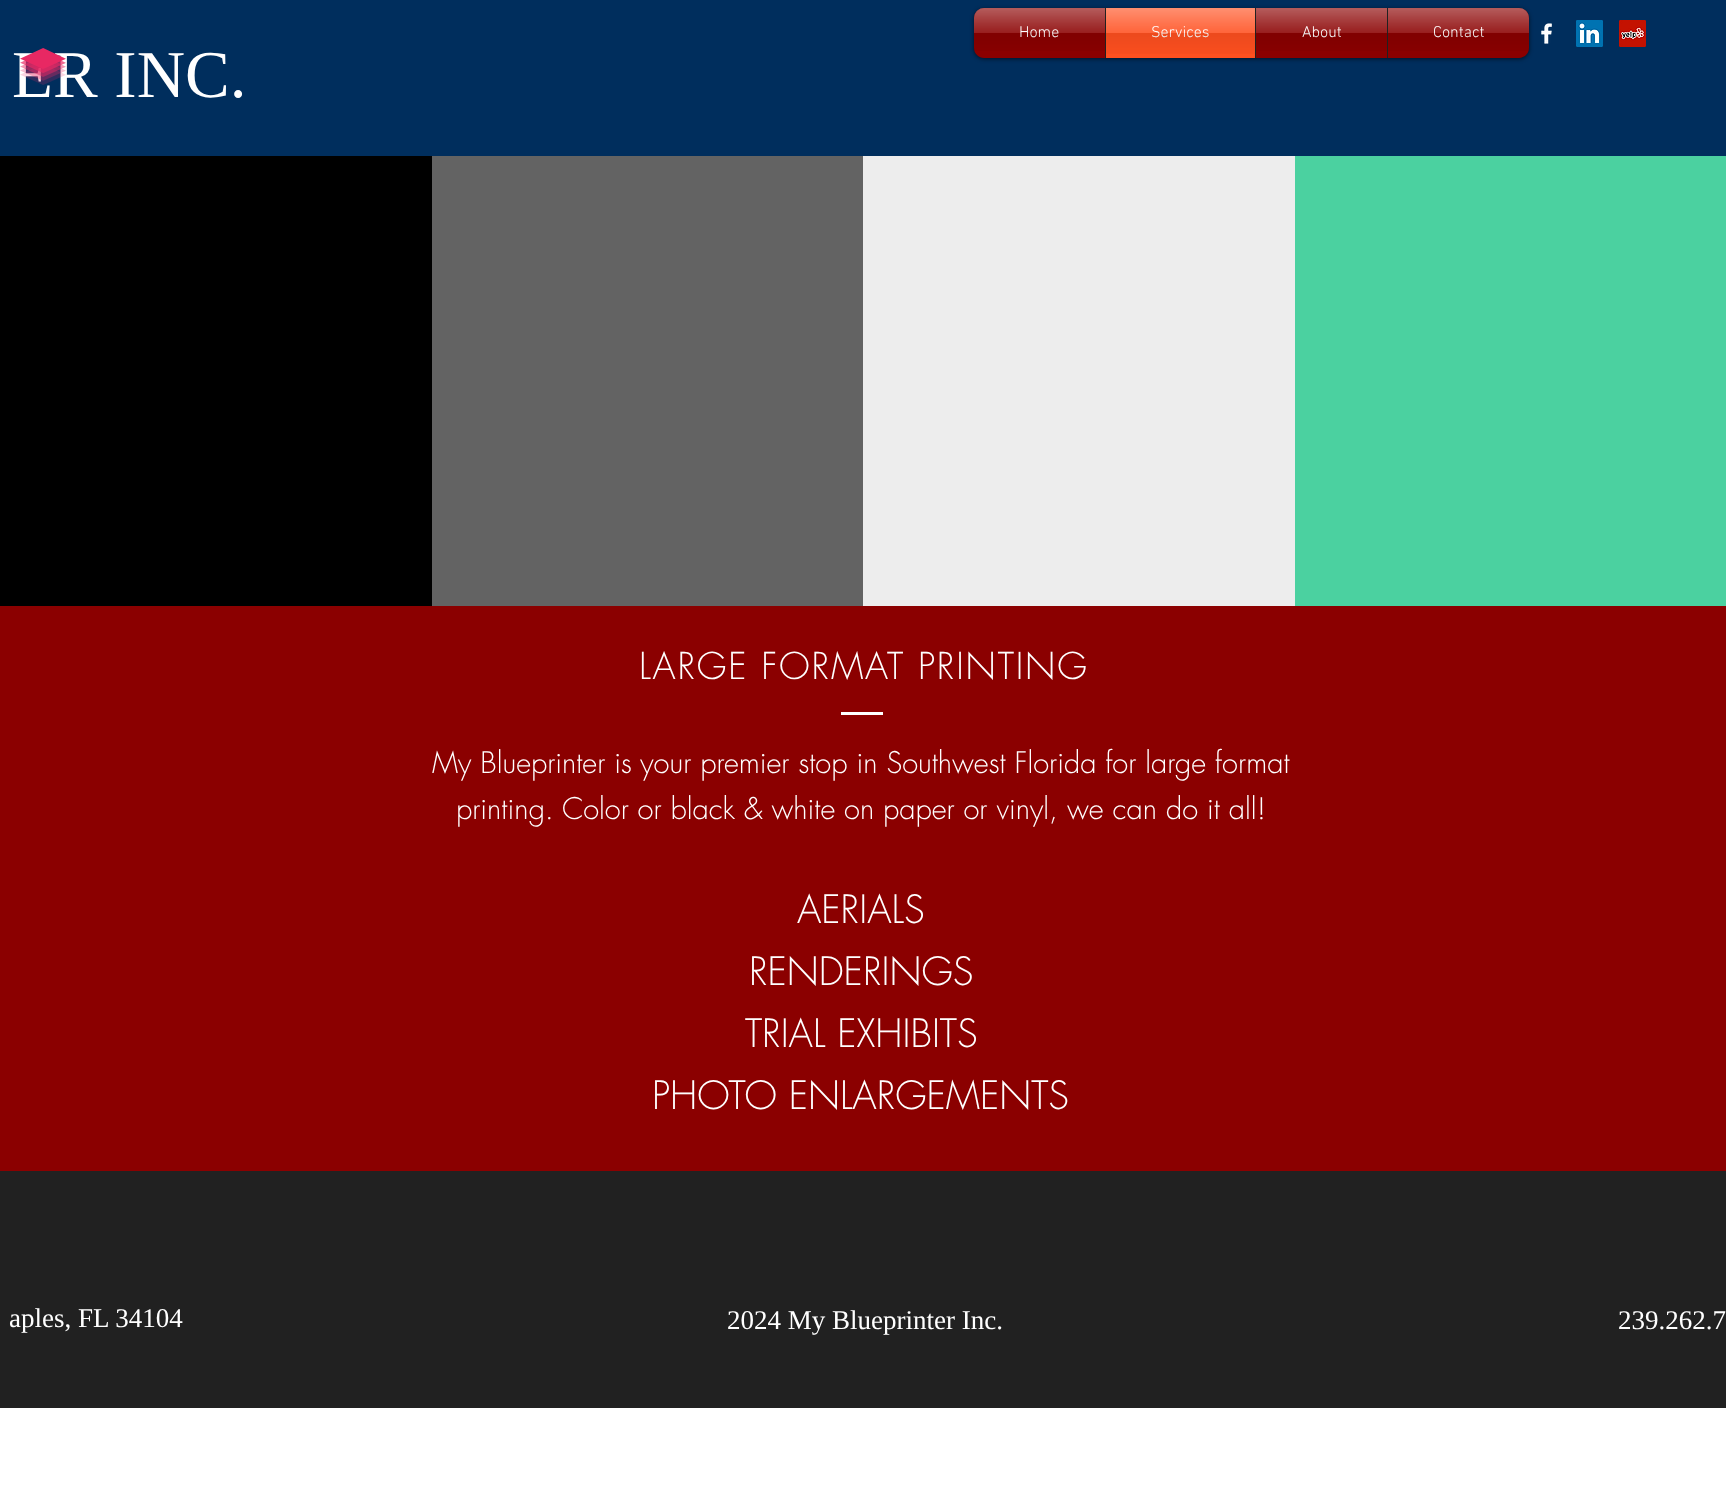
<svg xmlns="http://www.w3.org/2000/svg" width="1726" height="1492">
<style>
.a{font:300 16px 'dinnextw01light';fill:#fff}
.b{font:67px Liberation Serif;fill:#fff}
.c{font:300 36px futura;letter-spacing:1.8px;fill:#fff}
.d{font:300 29px futura;fill:#fff}
.e{font:300 38px futura;fill:#fff}
.f{font:27px Liberation Serif;fill:#fff}
</style>
<rect width="100%" height="100%" fill="#fff"/>
<path fill="#002e5d" d="M0 0h1726v156H0z"/>
<rect fill="#00000099" filter="blur(2px)" x="974" y="9" width="555" height="50" rx="10"/>
<image href="1.png" x="974" y="8" width="555" height="42"/>
<path fill="#8b0000" d="M984 8h121v50h-121c-5.5 0-10-4.5-10-10v-30c0-5.5 4.5-10 10-10z"/>
<path fill="#ff5020" d="M1106 8h149v50H1106z"/>
<path fill="#212121" d="M1105 8h1v50H1105z"/>
<path fill="#8b0000" d="M1256 8h131v50H1256z"/>
<path fill="#212121" d="M1255 8h1v50H1255z"/>
<path fill="#8b0000" d="M1387 8h132c5.5 0 10 4.5 10 10v30c0 5.5-4.5 10-10 10h-132z"/>
<path fill="#212121" d="M1387 8h1v50H1387z"/>
<image href="6.png" x="1541" y="23" width="11" height="21"/>
<image href="7.png" x="1576" y="20" width="27" height="27"/>
<image href="8.png" x="1619" y="20" width="27" height="27"/>
<path fill="#000" d="M0 156h432v450H0z"/>
<path fill="#636363" d="M432 156h431v450H432z"/>
<path fill="#ededed" d="M863 156h432v450H863z"/>
<path fill="#4bd1a0" d="M1295 156h431v450H1295z"/>
<path fill="#8b0000" d="M0 606h1726v565H0z"/>
<path fill="#fff" d="M841 712h42v3H841z"/>
<path fill="#212121" d="M0 1171h1726v237H0z"/>
<text class="a" x="1019" y="37">Home</text>
<image href="2.png" x="974" y="8" width="131" height="43"/>
<text class="a" x="1151" y="37">Services</text>
<image href="3.png" x="1106" y="8" width="149" height="46"/>
<text class="a" x="1302" y="37">About</text>
<image href="4.png" x="1256" y="8" width="131" height="43"/>
<text class="a" x="1433" y="37">Contact</text>
<image href="5.png" x="1388" y="8" width="141" height="43"/>
<text class="b" x="12" y="97">ER INC.</text>
<image href="9.png" x="20" y="48" width="46" height="37"/>
<text class="c" x="639" y="679">LARGE FORMAT PRINTING</text>
<text class="d" x="432" y="773">My Blueprinter is your premier stop in Southwest Florida for large format</text>
<text class="d" x="456" y="819">printing. Color or black &amp; white on paper or vinyl, we can do it all!</text>
<text class="e" x="797" y="923">AERIALS</text>
<text class="e" x="749" y="985">RENDERINGS</text>
<text class="e" x="745" y="1047">TRIAL EXHIBITS</text>
<text class="e" x="652" y="1109">PHOTO ENLARGEMENTS</text>
<text class="f" x="9" y="1327">aples, FL 34104</text>
<text class="f" x="727" y="1329">2024 My Blueprinter Inc.</text>
<text class="f" x="1618" y="1329">239.262.7</text>
</svg>
